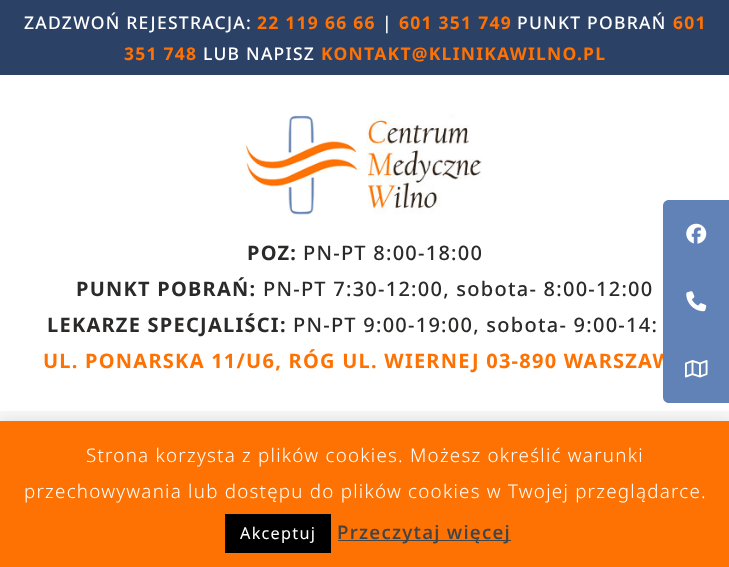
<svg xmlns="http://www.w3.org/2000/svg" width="729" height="567">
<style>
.a{font:500 17.5px Noto Sans;letter-spacing:1.25px;fill:#fff}
.b{font:bold 17.5px Noto Sans;letter-spacing:1.25px;fill:#fe7203}
.c{font:bold 20px Noto Sans;letter-spacing:1.25px;fill:#2b2a29}
.d{font:500 20px Noto Sans;letter-spacing:1.25px;fill:#2b2a29}
.e{font:bold 20px Noto Sans;letter-spacing:1.25px;fill:#fe7203}
.f{font:300 18.75px Noto Sans;letter-spacing:1.25px;fill:#fff}
.g{font:16.25px Noto Sans;letter-spacing:1.25px;fill:#fff}
.h{font:500 18.75px 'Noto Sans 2';letter-spacing:1.25px;fill:#444}
</style>
<rect width="100%" height="100%" fill="#fff"/>
<path fill="#2b4166" d="M0 0h729v75H0z"/>
<image href="1.png" x="244" y="113" width="238" height="102"/>
<path fill="#f7f7f7" d="M0 411h729v10H0z"/>
<path fill="#6182b6" d="M669 200h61v68h-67v-62c0-3.5 2.5-6 6-6z"/>
<image href="2.png" x="686" y="223" width="21" height="21"/>
<path fill="#6182b6" d="M663 268h66v67H663z"/>
<image href="3.png" x="686" y="291" width="21" height="21"/>
<text class="a" x="24" y="29">ZADZWOŃ REJESTRACJA:</text>
<text class="b" x="257" y="29">22 119 66 66</text>
<text class="a" x="382" y="29">|</text>
<text class="b" x="399" y="29">601 351 749</text>
<text class="a" x="517" y="29">PUNKT POBRAŃ</text>
<text class="b" x="673" y="29">601</text>
<text class="b" x="124" y="60">351 748</text>
<text class="a" x="203" y="60">LUB NAPISZ</text>
<text class="b" x="321" y="60">KONTAKT@KLINIKAWILNO.PL</text>
<text class="c" x="247" y="260">POZ:</text>
<text class="d" x="303" y="260">PN-PT 8:00-18:00</text>
<text class="c" x="76" y="296">PUNKT POBRAŃ:</text>
<text class="d" x="263" y="296">PN-PT 7:30-12:00, sobota- 8:00-12:00</text>
<text class="c" x="47" y="332">LEKARZE SPECJALIŚCI:</text>
<text class="d" x="293" y="332">PN-PT 9:00-19:00, sobota- 9:00-14:</text>
<text class="e" x="43" y="368">UL. PONARSKA 11/U6, RÓG UL. WIERNEJ 03-890 WARSZAW</text>
<path fill="#6182b6" d="M663 335h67v68h-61c-3.5 0-6-2.5-6-6z"/>
<image href="4.png" x="685" y="360" width="23" height="18"/>
<path fill="#acabab4d" filter="blur(6px)" d="M0 420h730v146H0z"/>
<path fill="#fe7203" d="M0 421h729v146H0z"/>
<text class="f" x="86" y="462">Strona korzysta z plików cookies. Możesz określić warunki</text>
<text class="f" x="24" y="498">przechowywania lub dostępu do plików cookies w Twojej przeglądarce.</text>
<path fill="#000" d="M225 514h106v39H225z"/>
<text class="g" x="240" y="539">Akceptuj</text>
<path fill="#444" d="M338 540h173v1H338z"/>
<text class="h" x="337" y="539">Przeczytaj więcej</text>
</svg>
